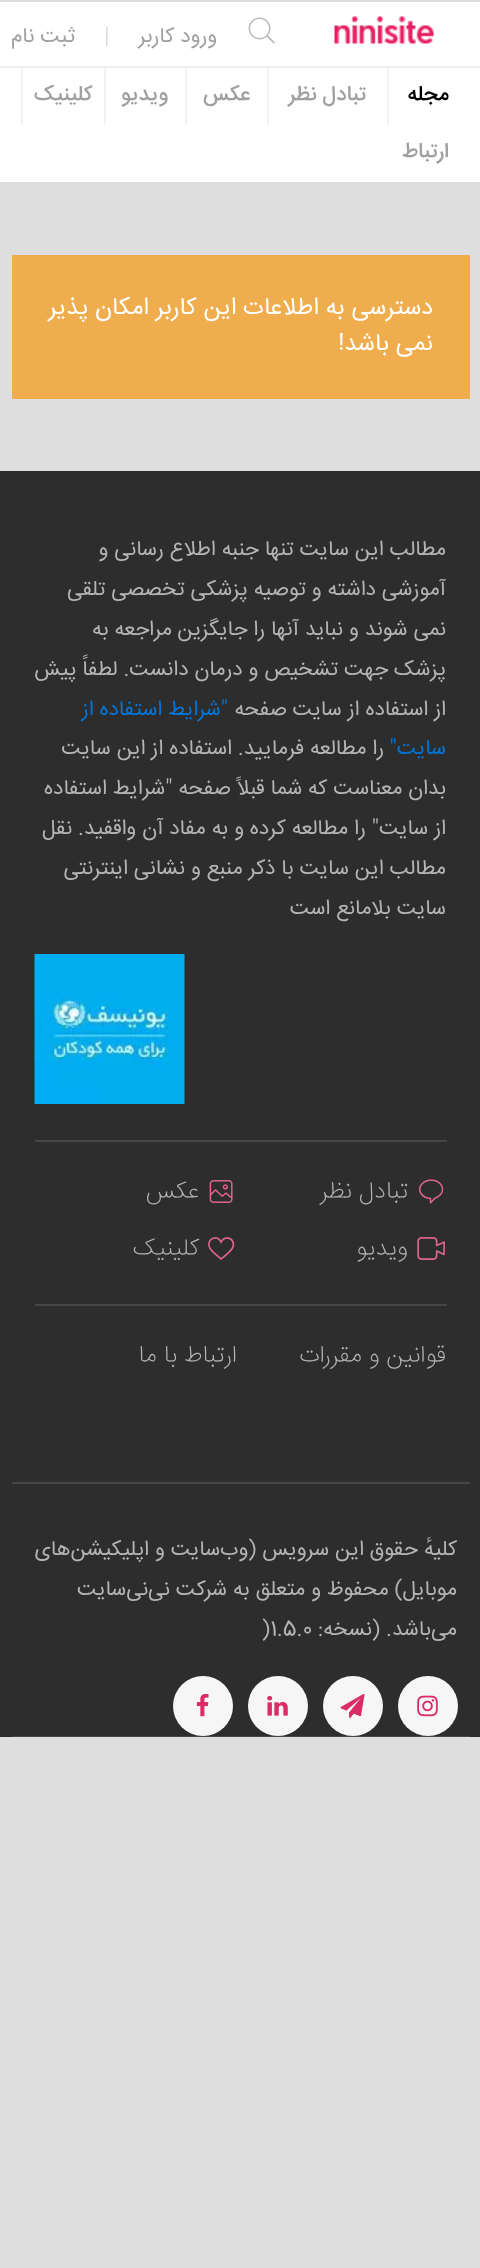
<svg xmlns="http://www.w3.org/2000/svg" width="480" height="2268">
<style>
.a{font:21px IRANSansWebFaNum;direction:rtl;fill:#a0a0a0}
.b{font:21px IRANSansWebFaNum;fill:#dadada}
.c{font:500 21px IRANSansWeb;direction:rtl;fill:#000}
.d{font:500 21px IRANSansWeb;direction:rtl;fill:#a0a0a0}
.e{font:24px IRANSansWebFaNum;direction:rtl;fill:#fff}
.f{font:21px IRANSansWebFaNum;direction:rtl;fill:#b4b4b4}
.g{font:21px IRANSansWebFaNum;direction:rtl;fill:#0275d8}
.h{font:200 24px IRANSansWeb;direction:rtl;fill:#b4b4b4}
.i{font:21px IRANSansWebFaNum;fill:#b4b4b4}
</style>
<rect width="100%" height="100%" fill="#dedede"/>
<path fill="#fff" d="M0 2h480v180H0z"/>
<image href="1.png" x="334" y="16" width="100" height="28"/>
<image href="2.png" x="248" y="17" width="27" height="27"/>
<path fill="#eee" d="M0 66h480v2H0z"/>
<path fill="#f3f2f2" d="M387 68h2v57H387z"/>
<path fill="#f3f2f2" d="M267 68h2v57H267z"/>
<path fill="#f3f2f2" d="M185 68h2v57H185z"/>
<path fill="#f3f2f2" d="M104 68h2v57H104z"/>
<path fill="#f3f2f2" d="M21 68h2v57H21z"/>
<path fill="#f0ad4e" d="M12 255h458v144H12z"/>
<path fill="#2d2d2d" d="M0 471h480v1266H0z"/>
<image href="3.png" x="34" y="954" width="151" height="150"/>
<path fill="#454545" d="M35 1140h412v2H35z"/>
<path fill="#454545" d="M35 1304h412v2H35z"/>
<image href="4.png" x="419" y="1179" width="25" height="25"/>
<image href="5.png" x="209" y="1180" width="24" height="23"/>
<image href="6.png" x="417" y="1237" width="28" height="23"/>
<image href="7.png" x="208" y="1237" width="27" height="23"/>
<path fill="#454545" d="M12 1482h458v2H12z"/>
<path fill="#454545" d="M12 1736h458v1H12z"/>
<circle fill="#f7f6f6" cx="428" cy="1706" r="30"/>
<image href="8.png" x="417" y="1695" width="21" height="22"/>
<circle fill="#f7f6f6" cx="353" cy="1706" r="30"/>
<image href="9.png" x="340" y="1694" width="25" height="24"/>
<circle fill="#f7f6f6" cx="278" cy="1706" r="30"/>
<image href="10.png" x="267" y="1695" width="21" height="21"/>
<circle fill="#f7f6f6" cx="203" cy="1706" r="30"/>
<image href="11.png" x="196" y="1693" width="13" height="24"/>
<text class="a" x="217" y="42">ورود کاربر</text>
<text class="b" x="104" y="42">|</text>
<text class="a" x="75" y="42">ثبت نام</text>
<text class="c" x="449" y="100">مجله</text>
<text class="d" x="366" y="100">تبادل نظر</text>
<text class="d" x="250" y="100">عکس</text>
<text class="d" x="168" y="100">ویدیو</text>
<text class="d" x="92" y="100">کلینیک</text>
<text class="d" x="449" y="157">ارتباط</text>
<text class="e" x="433" y="314">دسترسی به اطلاعات این کاربر امکان پذیر</text>
<text class="e" x="433" y="350">نمی باشد!</text>
<text class="f" x="446" y="555">مطالب این سایت تنها جنبه اطلاع رسانی و</text>
<text class="f" x="446" y="595">آموزشی داشته و توصیه پزشکی تخصصی تلقی</text>
<text class="f" x="446" y="635">نمی شوند و نباید آنها را جایگزین</text>
<text class="f" x="172" y="635">مراجعه به</text>
<text class="f" x="446" y="675">پزشک جهت تشخیص و درمان دانست. لطفاً پیش</text>
<text class="f" x="446" y="715">از استفاده از سایت</text>
<text class="f" x="287" y="715">صفحه</text>
<text class="g" x="228" y="715">"شرایط استفاده از</text>
<text class="g" x="446" y="754">سایت"</text>
<text class="f" x="384" y="754">را مطالعه فرمایید. استفاده از این سایت</text>
<text class="f" x="446" y="794">بدان معناست که شما قبلاً صفحه "شرایط استفاده</text>
<text class="f" x="446" y="834">از سایت" را مطالعه کرده</text>
<text class="f" x="244" y="834">و به مفاد آن واقفید. نقل</text>
<text class="f" x="446" y="874">مطالب این سایت با ذکر منبع و نشانی اینترنتی</text>
<text class="f" x="446" y="914">سایت بلامانع است</text>
<text class="h" x="408" y="1198">تبادل نظر</text>
<text class="h" x="199" y="1198">عکس</text>
<text class="h" x="408" y="1255">ویدیو</text>
<text class="h" x="199" y="1255">کلینیک</text>
<text class="h" x="446" y="1362">قوانین و مقررات</text>
<text class="h" x="237" y="1362">ارتباط با ما</text>
<text class="f" x="457" y="1555">کلیهٔ حقوق این سرویس (وب‌سایت و اپلیکیشن‌های</text>
<text class="f" x="457" y="1595">موبایل) محفوظ و متعلق به شرکت نی‌نی‌سایت</text>
<text class="f" x="457" y="1635">می‌باشد. (نسخه:</text>
<text class="i" x="262" y="1635">)1.5.0</text>
</svg>
